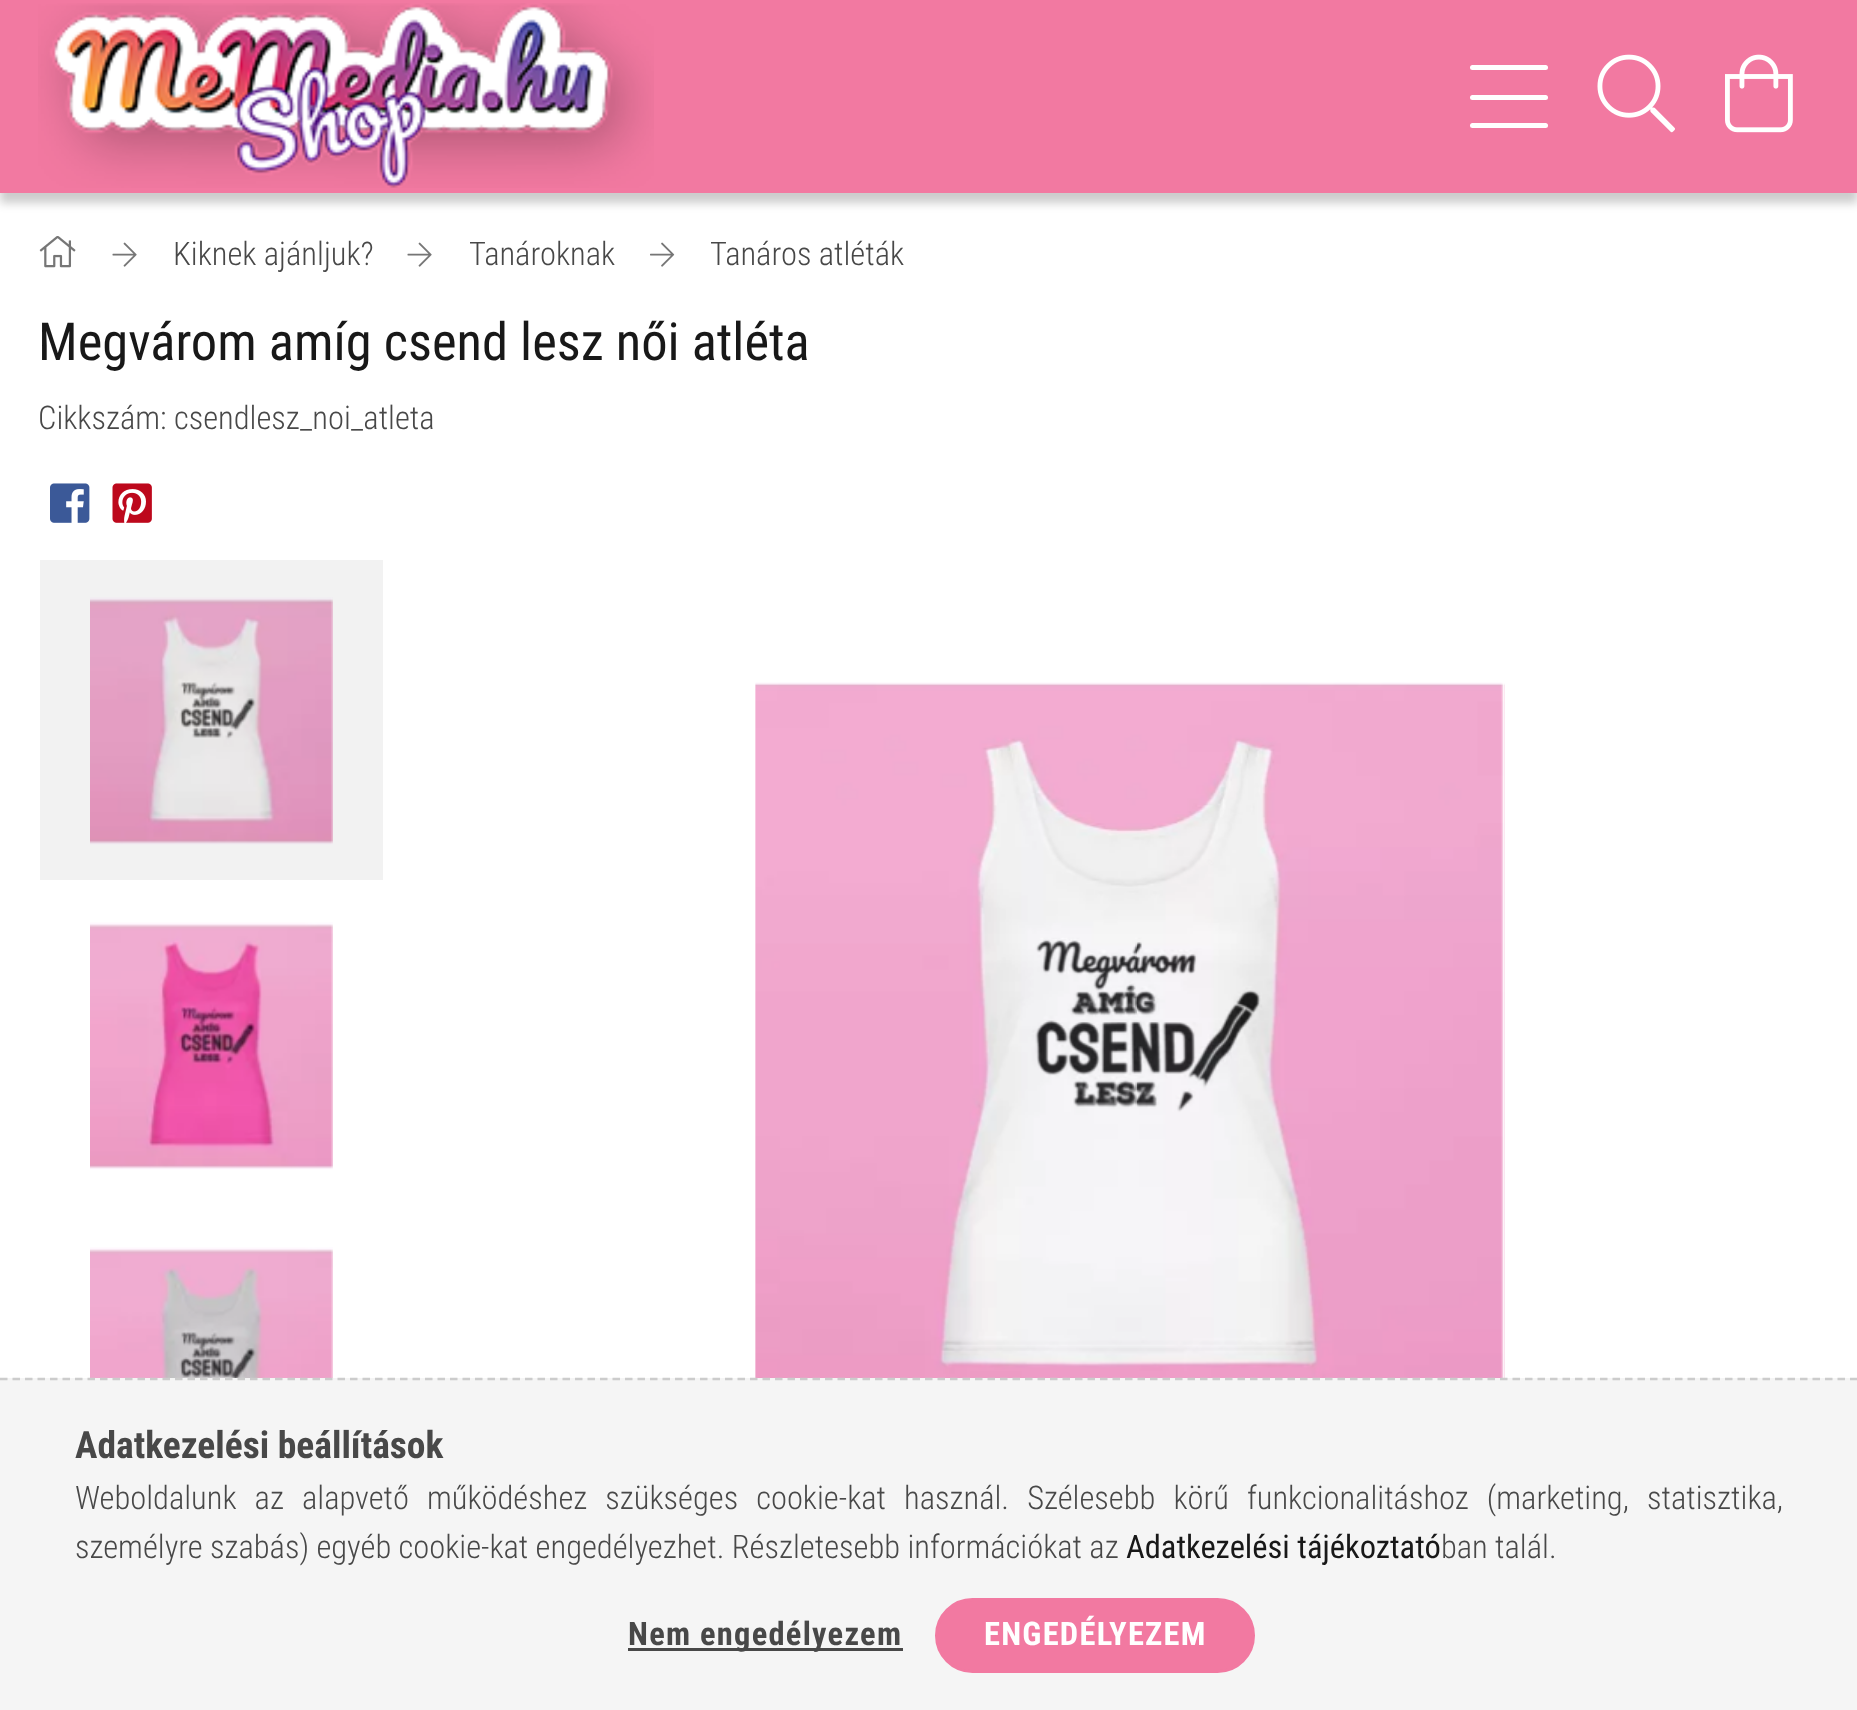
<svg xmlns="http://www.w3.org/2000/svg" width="1857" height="1710">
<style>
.a{font:300 32.5px Roboto Condensed;fill:#484848}
.b{font:52.5px Roboto Condensed;fill:#181818}
.c{font:bold 37.5px Roboto Condensed;fill:#484848}
.d{font:32.5px Roboto Condensed;fill:#181818}
.e{font:bold 32.5px Roboto Condensed;letter-spacing:1.25px;fill:#484848}
.f{font:bold 32.5px Roboto Condensed;letter-spacing:1.25px;fill:#fff}
</style>
<rect width="100%" height="100%" fill="#fff"/>
<path fill="#f2f2f2" d="M40 560h343v320H40z"/>
<path fill="#00000033" filter="blur(5px)" d="M0 10h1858v193H0z"/>
<path fill="#f279a1" d="M0 0h1857v193H0z"/>
<image href="1.png" x="38" y="3" width="616" height="185"/>
<rect fill="#fff" x="1470" y="65" width="78" height="5" rx="2.5"/>
<rect fill="#fff" x="1470" y="95" width="78" height="5" rx="2.5"/>
<rect fill="#fff" x="1470" y="123" width="78" height="5" rx="2.5"/>
<image href="2.png" x="1597" y="54" width="78" height="79"/>
<image href="3.png" x="1725" y="54" width="68" height="79"/>
<image href="4.png" x="39" y="236" width="37" height="32"/>
<image href="5.png" x="112" y="242" width="25" height="25"/>
<image href="5.png" x="407" y="242" width="25" height="25"/>
<image href="6.png" x="650" y="242" width="25" height="25"/>
<image href="7.png" x="50" y="483" width="40" height="40"/>
<image href="8.png" x="112" y="483" width="40" height="40"/>
<image href="9.png" x="90" y="597" width="243" height="248"/>
<image href="10.png" x="90" y="922" width="243" height="248"/>
<image href="11.png" x="90" y="1247" width="243" height="131"/>
<image href="12.png" x="755" y="682" width="749" height="696"/>
<image href="13.png" x="1504" y="683" width="1" height="695"/>
<path fill="#f5f5f5" d="M0 1378h1857v332H0z"/>
<path fill="none" stroke="#ccc" stroke-width="2.5" stroke-dasharray="7.5 5" d="M0 1379h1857.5"/>
<path fill="#484848" d="M628 1648h275v3H628z"/>
<rect fill="#f279a1" stroke="#f279a1" stroke-width="3" x="936.5" y="1599.5" width="317" height="72" rx="36"/>
<text class="a" x="173" y="265">Kiknek ajánljuk?</text>
<text class="a" x="469" y="265">Tanároknak</text>
<text class="a" x="710" y="265">Tanáros atléták</text>
<text class="b" x="38" y="360">Megvárom amíg csend lesz női atléta</text>
<text class="a" x="38" y="429">Cikkszám: csendlesz_noi_atleta</text>
<text class="c" x="75" y="1458">Adatkezelési beállítások</text>
<text class="a" x="75" y="1509" word-spacing="10.75">Weboldalunk az alapvető működéshez szükséges cookie-kat használ. Szélesebb körű funkcionalitáshoz (marketing, statisztika,</text>
<text class="a" x="75" y="1558">személyre szabás) egyéb cookie-kat engedélyezhet. Részletesebb információkat az</text>
<text class="d" x="1126" y="1558">Adatkezelési tájékoztató</text>
<text class="a" x="1441" y="1558">ban talál.</text>
<text class="e" x="628" y="1645">Nem engedélyezem</text>
<text class="f" x="984" y="1645">ENGEDÉLYEZEM</text>
</svg>
